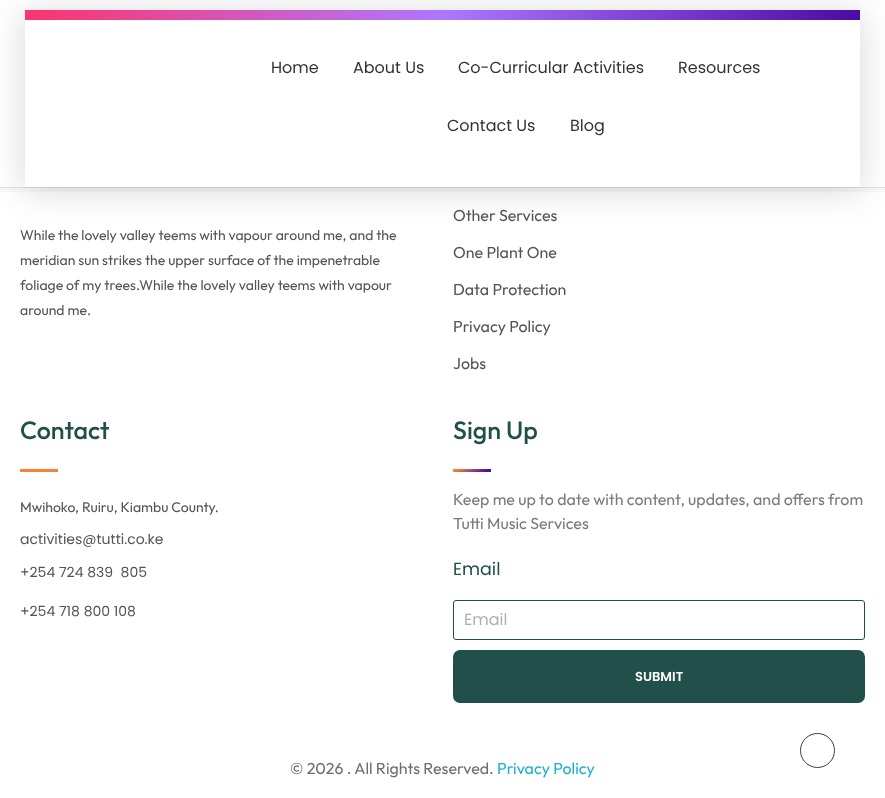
<svg xmlns="http://www.w3.org/2000/svg" width="885" height="798">
<style>
.a{font:16px Poppins;fill:#333}
.b{font:14px Outfit;fill:#545454}
.c{font:16px Outfit;fill:#545454}
.d{font:500 25px Outfit;fill:#205049}
.e{font:14px Poppins;fill:#545454}
.f{font:16px Outfit;fill:#7a7a7a}
.g{font:17.5px Poppins;fill:#205049}
.h{font:16px Poppins;fill:#afafaf}
.i{font:600 13px Poppins;fill:#fff}
.j{font:16px Outfit;fill:#6e6e6e}
.k{font:16px Outfit;fill:#1bb0ce}
</style>
<defs>
<clipPath id="clip1"><path d="M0 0h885v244h-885zm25 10h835v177h-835z" clip-rule="evenodd"/></clipPath>
<linearGradient id="g1" gradientUnits="userSpaceOnUse" x1="860" y1="15" x2="25" y2="15"><stop offset="0" stop-color="#4d0aa4"/><stop offset="0.5" stop-color="#ad77ff"/><stop offset="1" stop-color="#fd346e"/></linearGradient>
<linearGradient id="g2" gradientUnits="userSpaceOnUse" x1="467" y1="462" x2="477" y2="479"><stop offset="0.09" stop-color="#f48337"/><stop offset="0.9" stop-color="#4d0aa4"/></linearGradient>
</defs>
<rect width="100%" height="100%" fill="#fff"/>
<path fill="#f8f8f8" d="M0 188h885v4H0z"/>
<path fill="#dedede" d="M0 187h885v1H0z"/>
<g clip-path="url(#clip1)">
<path fill="#00000029" filter="blur(17.5px)" d="M25 13h835v177H25z"/>
</g>
<path fill="url(#g1)" d="M25 10h835v10H25z"/>
<path fill="#f48337" d="M20 469h38v3H20z"/>
<path fill="url(#g2)" d="M453 469h38v3H453z"/>
<rect fill="none" stroke="#205049" x="453.5" y="600.5" width="411" height="39" rx="2.5"/>
<rect fill="#205049" x="453" y="650" width="412" height="53" rx="7"/>
<circle fill="none" stroke="#3d3d3d" cx="817.5" cy="750.5" r="17"/>
<text class="a" x="271" y="73">Home</text>
<text class="a" x="353" y="73">About Us</text>
<text class="a" x="458" y="73">Co-Curricular Activities</text>
<text class="a" x="678" y="73">Resources</text>
<text class="a" x="447" y="131">Contact Us</text>
<text class="a" x="570" y="131">Blog</text>
<text class="b" x="20" y="240">While the lovely valley teems with vapour around me, and the</text>
<text class="b" x="20" y="265">meridian sun strikes the upper surface of the impenetrable</text>
<text class="b" x="20" y="290">foliage of my trees.While the lovely valley teems with vapour</text>
<text class="b" x="20" y="315">around me.</text>
<text class="c" x="453" y="221">Other Services</text>
<text class="c" x="453" y="258">One Plant One</text>
<text class="c" x="453" y="295">Data Protection</text>
<text class="c" x="453" y="332">Privacy Policy</text>
<text class="c" x="453" y="369">Jobs</text>
<text class="d" x="20" y="439">Contact</text>
<text class="b" x="20" y="512">Mwihoko, Ruiru, Kiambu County.</text>
<text class="e" x="20" y="544">activities@tutti.co.ke</text>
<text class="e" xml:space="preserve" x="20" y="577">+254 724 839  805</text>
<text class="e" x="20" y="616">+254 718 800 108</text>
<text class="d" x="453" y="439">Sign Up</text>
<text class="f" x="453" y="505">Keep me up to date with content, updates, and offers from</text>
<text class="f" x="453" y="529">Tutti Music Services</text>
<text class="g" x="453" y="575">Email</text>
<text class="h" x="464" y="625">Email</text>
<text class="i" x="635" y="681">SUBMIT</text>
<text class="j" x="290" y="774">© 2026 . All Rights Reserved.</text>
<text class="k" x="497" y="774">Privacy Policy</text>
</svg>
